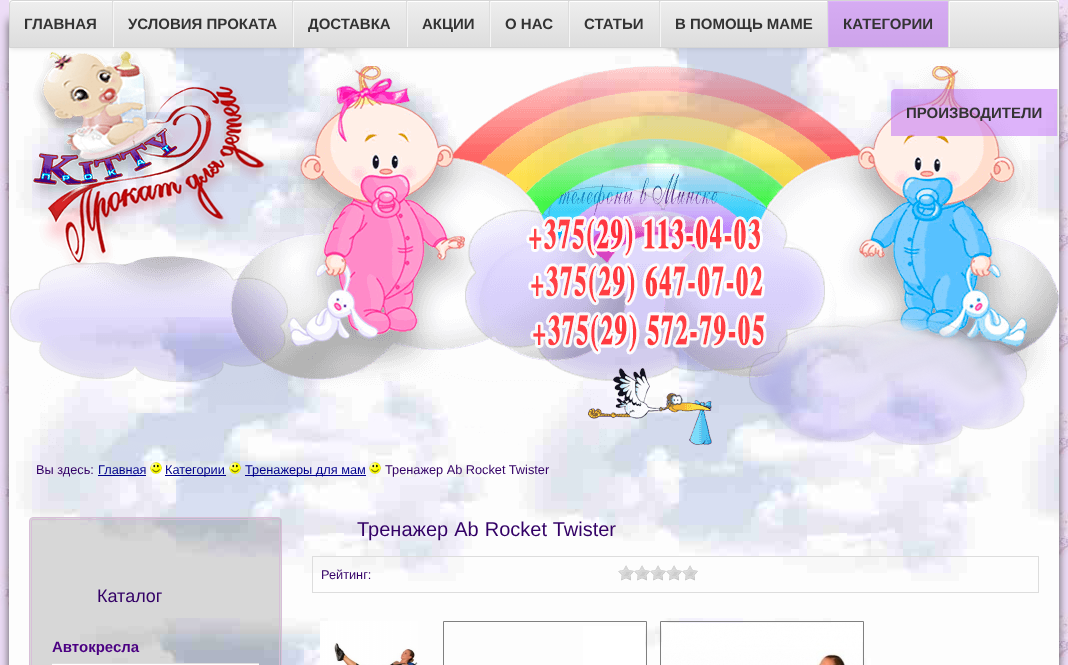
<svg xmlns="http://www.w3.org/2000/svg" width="1068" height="665">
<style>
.a{font:bold 15px Liberation Sans;fill:#333}
.b{font:12.75px Liberation Sans;fill:#306}
.c{font:12.75px Liberation Sans;fill:#00008b}
.d{font:20px Liberation Sans;fill:#306}
.e{font:18px Liberation Sans;fill:#306}
.f{font:bold 15px Liberation Sans;fill:#4b0082}
</style>
<defs>
<clipPath id="clip1"><path d="M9 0h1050v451H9z"/></clipPath>
<clipPath id="clip2"><path d="M13 0h1042c2 0 4 2 4 4v44h-1050v-44c0-2 2-4 4-4z"/></clipPath>
<linearGradient id="g1" gradientUnits="userSpaceOnUse" x1="534" y1="1" x2="534" y2="47"><stop offset="0" stop-color="#eee"/><stop offset="1" stop-color="#ddd"/></linearGradient>
</defs>
<rect width="100%" height="100%" fill="#fff"/>
<image href="1.png" x="0" y="0" width="1068" height="665"/>
<path fill="#555" filter="blur(5px)" d="M9 20h1050v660H9z"/>
<image href="2.png" x="9" y="0" width="1050" height="665"/>
<image href="3.png" x="10" y="63" width="1049" height="388"/>
<image href="4.png" x="32" y="51" width="236" height="217"/>
<g clip-path="url(#clip1)">
<rect fill="#0000001a" filter="blur(2.5px)" x="9" y="1" width="1050" height="48" rx="4"/>
</g>
<g clip-path="url(#clip2)">
<path fill="url(#g1)" d="M9 1h1050v46H9z"/>
</g>
<path fill="#fff" d="M13 2h1042c2 0 3 1 3 3c0-2-1-4-3-4h-1042c-2 0-3 2-3 4c0-2 1-3 3-3z"/>
<path fill="none" stroke="#d5d5d5" d="M13 .5h1042c2 0 3.5 1.5 3.5 3.5v43.5h-1049v-43.5c0-2 1.5-3.5 3.5-3.5z"/>
<path fill="#f5f5f5" d="M113 1h1v46H113z"/>
<path fill="#ddd" d="M112 1h1v46H112z"/>
<path fill="#f5f5f5" d="M293 1h1v46H293z"/>
<path fill="#ddd" d="M292 1h1v46H292z"/>
<path fill="#f5f5f5" d="M407 1h1v46H407z"/>
<path fill="#ddd" d="M406 1h1v46H406z"/>
<path fill="#f5f5f5" d="M490 1h1v46H490z"/>
<path fill="#ddd" d="M489 1h1v46H489z"/>
<path fill="#f5f5f5" d="M569 1h1v46H569z"/>
<path fill="#ddd" d="M568 1h1v46H568z"/>
<path fill="#f5f5f5" d="M660 1h1v46H660z"/>
<path fill="#ddd" d="M659 1h1v46H659z"/>
<path fill="#f5f5f5" d="M828 1h1v46H828z"/>
<path fill="#ddd" d="M827 1h1v46H827z"/>
<path fill="#f5f5f5" d="M949 1h1v46H949z"/>
<path fill="#be6af880" d="M828 1h120v46H828z"/>
<path fill="#ddd" d="M948 1h1v46H948z"/>
<path fill="#f5f5f5" d="M1058 89h1v47H1058z"/>
<path fill="#be6af880" d="M895 89h163v47h-167v-43c0-2 2-4 4-4z"/>
<path fill="#ddd" d="M1057 89h1v47H1057z"/>
<path fill="#00008b" d="M98 475h48v1H98z"/>
<image href="5.png" x="150" y="462" width="12" height="12"/>
<path fill="#00008b" d="M165 475h61v1H165z"/>
<image href="6.png" x="229" y="462" width="12" height="12"/>
<path fill="#00008b" d="M245 475h121v1H245z"/>
<image href="7.png" x="369" y="462" width="12" height="12"/>
<path fill="#ddd" d="M312 556h727v1H312z"/>
<path fill="#ddd" d="M1038 556h1v37H1038z"/>
<path fill="#ddd" d="M312 592h727v1H312z"/>
<path fill="#ddd" d="M312 556h1v37H312z"/>
<image href="8.png" x="618" y="565" width="80" height="16"/>
<image href="9.png" x="320" y="621" width="98" height="44"/>
<path fill="none" stroke="#808080" d="M443.5 621.5h203v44H443.5z"/>
<path fill="none" stroke="#808080" d="M660.5 621.5h203v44H660.5z"/>
<path fill="#fff" d="M583 626h62v39H583z"/>
<image href="10.png" x="662" y="623" width="200" height="42"/>
<rect fill="#00000026" stroke="#d8bfd8" x="29.5" y="517.5" width="252" height="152" rx="3.5"/>
<rect fill="none" stroke="#d8bfd8" x="31.5" y="519.5" width="248" height="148" rx="1.5"/>
<path fill="#fff" d="M52 664h207v1H52z"/>
<path fill="#ddd" d="M52 663h207v1H52z"/>
<text class="a" x="24" y="29">ГЛАВНАЯ</text>
<text class="a" x="128" y="29">УСЛОВИЯ ПРОКАТА</text>
<text class="a" x="308" y="29">ДОСТАВКА</text>
<text class="a" x="422" y="29">АКЦИИ</text>
<text class="a" x="505" y="29">О НАС</text>
<text class="a" x="584" y="29">СТАТЬИ</text>
<text class="a" x="675" y="29">В ПОМОЩЬ МАМЕ</text>
<text class="a" x="843" y="29">КАТЕГОРИИ</text>
<text class="a" x="906" y="118">ПРОИЗВОДИТЕЛИ</text>
<text class="b" x="36" y="474">Вы здесь:</text>
<text class="c" x="98" y="474">Главная</text>
<text class="c" x="165" y="474">Категории</text>
<text class="c" x="245" y="474">Тренажеры для мам</text>
<text class="b" x="385" y="474">Тренажер Ab Rocket Twister</text>
<text class="d" x="357" y="536" word-spacing="0.5">Тренажер Ab Rocket Twister</text>
<text class="b" x="321" y="579">Рейтинг:</text>
<text class="e" x="97" y="602">Каталог</text>
<text class="f" x="52" y="652">Автокресла</text>
</svg>
